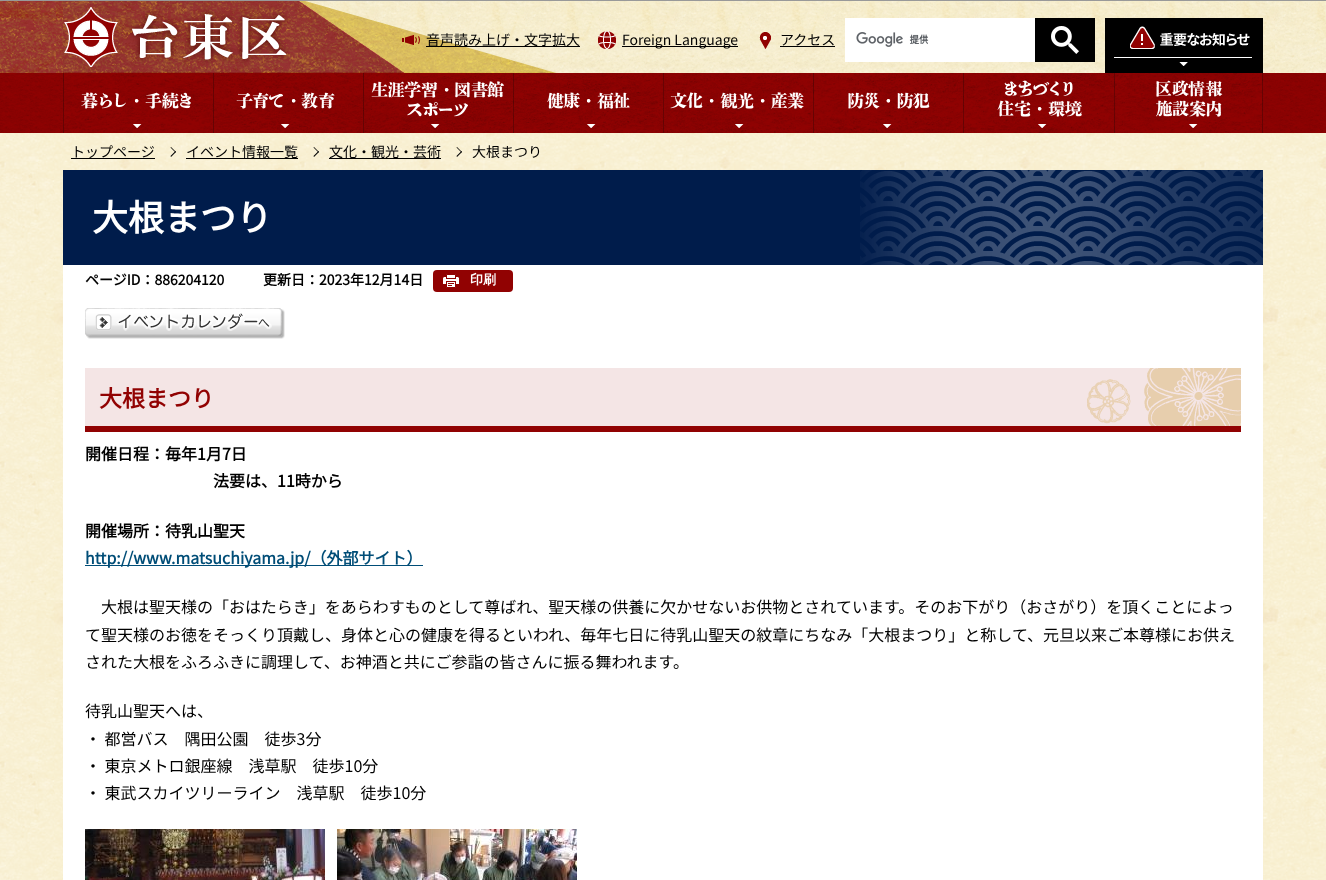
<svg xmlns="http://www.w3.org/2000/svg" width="1326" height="880">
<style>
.a{font:100 14px Noto Sans JP;fill:#000}
.b{font:bold 36px Noto Sans JP;fill:#fff}
.c{font:bold 14px Noto Sans JP;fill:#000}
.d{font:bold 13px WenQuanYi Zen Hei;fill:#fff}
.e{font:bold 23px Noto Sans JP;fill:#910202}
.f{font:bold 16px Noto Sans JP;fill:#000}
.g{font:bold 16px Noto Sans JP;fill:#004d77}
.h{font:100 16px Noto Sans JP;fill:#000}
</style>
<rect width="100%" height="100%" fill="#fff"/>
<image href="1.png" x="0" y="1" width="1326" height="879"/>
<path fill="#999" d="M0 0h1326v1H0z"/>
<image href="2.png" x="299" y="1" width="1027" height="72"/>
<image href="3.png" x="0" y="1" width="63" height="72"/>
<image href="4.png" x="63" y="1" width="495" height="72"/>
<image href="5.png" x="64" y="7" width="225" height="60"/>
<image href="6.png" x="402" y="35" width="18" height="10"/>
<path fill="#000" d="M426 46h154v1H426z"/>
<image href="7.png" x="598" y="31" width="18" height="18"/>
<path fill="#000" d="M622 46h116v1H622z"/>
<image href="8.png" x="759" y="32" width="12" height="17"/>
<path fill="#000" d="M780 46h55v1H780z"/>
<path fill="#fff" d="M845 18h190v44H845z"/>
<image href="9.png" x="856" y="32" width="73" height="15"/>
<path fill="#000" d="M1035 18h60v44H1035z"/>
<image href="10.png" x="1051" y="26" width="28" height="28"/>
<image href="11.png" x="1105" y="18" width="158" height="55"/>
<image href="12.png" x="0" y="73" width="1326" height="60"/>
<image href="13.png" x="63" y="73" width="150" height="60"/>
<image href="14.png" x="213" y="73" width="150" height="60"/>
<image href="15.png" x="363" y="73" width="150" height="60"/>
<image href="16.png" x="513" y="73" width="150" height="60"/>
<image href="17.png" x="663" y="73" width="150" height="60"/>
<image href="18.png" x="813" y="73" width="150" height="60"/>
<image href="19.png" x="963" y="73" width="151" height="60"/>
<image href="20.png" x="1114" y="73" width="149" height="60"/>
<path fill="#000" d="M71 158h84v1H71z"/>
<path fill="#000" d="M171 147l5 5l-.5 .5l-5-5z"/>
<path fill="#000" d="M175.5 151l.5 1l-5 5l-.5-1z"/>
<path fill="#000" d="M186 158h112v1H186z"/>
<path fill="#000" d="M314 147l5 5l-.5 .5l-5-5z"/>
<path fill="#000" d="M318.5 151l.5 1l-5 5l-.5-1z"/>
<path fill="#000" d="M329 158h112v1H329z"/>
<path fill="#000" d="M457 147l5 5l-.5 .5l-5-5z"/>
<path fill="#000" d="M461.5 151l.5 1l-5 5l-.5-1z"/>
<path fill="#fff" d="M63 265h1200v615H63z"/>
<path fill="#001c4b" d="M63 170h1200v95H63z"/>
<image href="21.png" x="860" y="170" width="403" height="95"/>
<rect fill="#910202" x="433" y="270" width="80" height="22" rx="4"/>
<image href="22.png" x="443" y="274" width="16" height="14"/>
<image href="23.png" x="85" y="308" width="200" height="31"/>
<path fill="#f4e5e5" d="M85 368h1002v58H85z"/>
<image href="24.png" x="1087" y="368" width="154" height="58"/>
<path fill="#910202" d="M85 426h1156v6H85z"/>
<path fill="#004d77" d="M85 565h338v1H85z"/>
<image href="25.png" x="85" y="829" width="240" height="51"/>
<image href="26.png" x="337" y="829" width="240" height="51"/>
<text class="a" x="426" y="45">音声読み上げ・文字拡大</text>
<text class="a" x="622" y="45">Foreign Language</text>
<text class="a" x="780" y="45">アクセス</text>
<text class="a" x="71" y="157">トップページ</text>
<text class="a" x="186" y="157">イベント情報一覧</text>
<text class="a" x="329" y="157">文化・観光・芸術</text>
<text class="a" x="472" y="157">大根まつり</text>
<text class="b" x="92" y="231">大根まつり</text>
<text class="c" x="85" y="285">ページID：886204120</text>
<text class="c" x="263" y="285">更新日：2023年12月14日</text>
<text class="d" x="470" y="284">印刷</text>
<text class="e" x="99" y="407">大根まつり</text>
<text class="f" x="85" y="460">開催日程：毎年1月7日</text>
<text class="f" x="213" y="487">法要は、11時から</text>
<text class="f" x="85" y="537">開催場所：待乳山聖天</text>
<text class="g" x="85" y="564">http://www.matsuchiyama.jp/（外部サイト）</text>
<text class="h" x="101" y="613">大根は聖天様の「おはたらき」をあらわすものとして尊ばれ、聖天様の供養に欠かせないお供物とされています。そのお下がり（おさがり）を頂くことによっ</text>
<text class="h" x="85" y="641">て聖天様のお徳をそっくり頂戴し、身体と心の健康を得るといわれ、毎年七日に待乳山聖天の紋章にちなみ「大根まつり」と称して、元旦以来ご本尊様にお供え</text>
<text class="h" x="85" y="668">された大根をふろふきに調理して、お神酒と共にご参詣の皆さんに振る舞われます。</text>
<text class="h" x="85" y="717">待乳山聖天へは、</text>
<text class="h" x="85" y="745">・ 都営バス　隅田公園　徒歩3分</text>
<text class="h" x="85" y="772">・ 東京メトロ銀座線　浅草駅　徒歩10分</text>
<text class="h" x="85" y="799">・ 東武スカイツリーライン　浅草駅　徒歩10分</text>
</svg>
